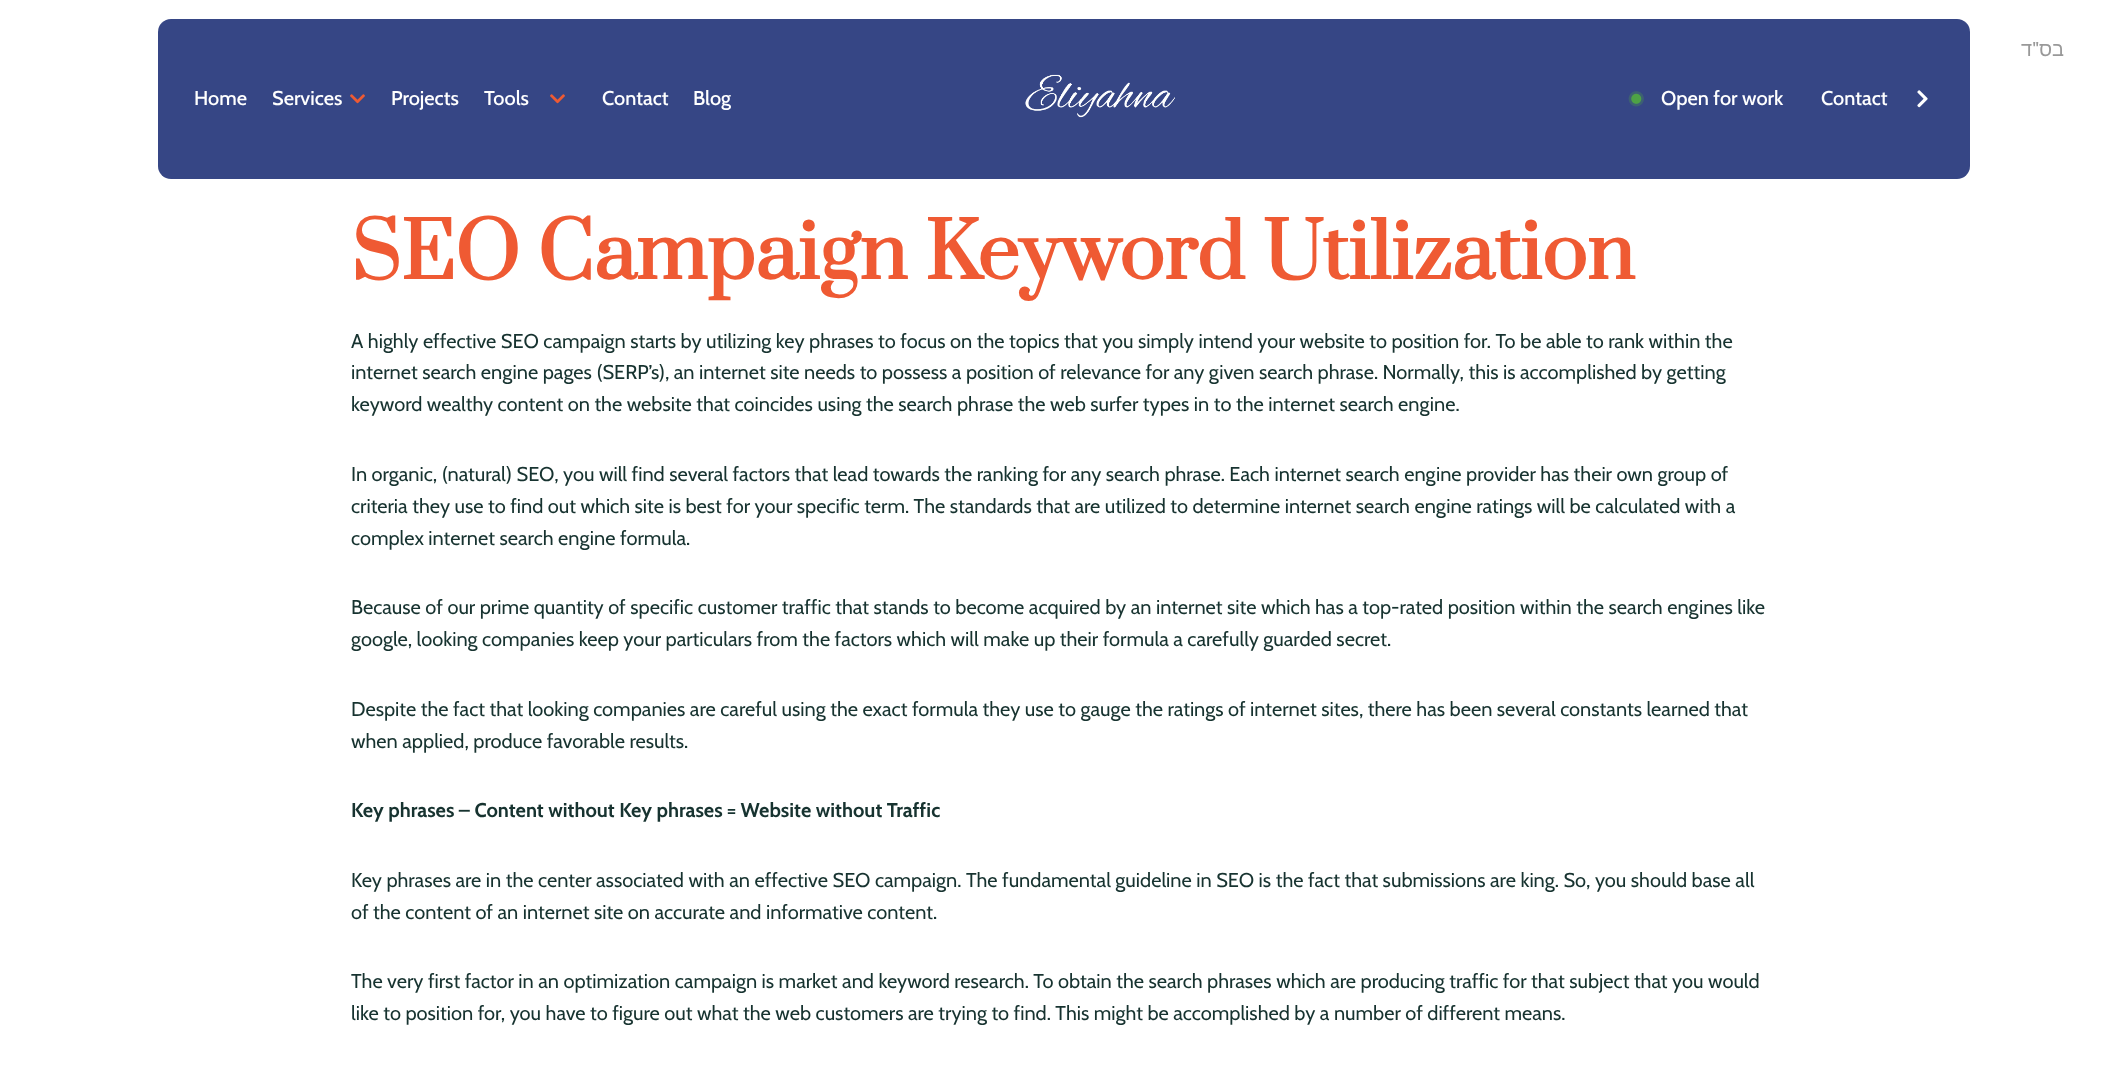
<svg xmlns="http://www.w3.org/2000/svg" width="2126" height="1080">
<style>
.a{font:20px Liberation Sans;direction:rtl;fill:#999}
.b{font:20px Cabin;direction:rtl;fill:#999}
.c{font:500 20px Cabin;fill:#fff}
.d{font:bold 75px Prata;fill:#ef5a33}
.e{font:20px Cabin;fill:#173330}
.f{font:bold 20px Cabin;fill:#173330}
</style>
<defs>
<clipPath id="clip1"><path d="M694 83h37v32H694z"/></clipPath>
</defs>
<rect width="100%" height="100%" fill="#fff"/>
<rect fill="#364685" x="158" y="19" width="1812" height="160" rx="13"/>
<image href="1.png" x="350" y="94" width="15" height="10"/>
<image href="1.png" x="550" y="94" width="15" height="10"/>
<image href="2.png" x="1025" y="74" width="150" height="44"/>
<image href="3.png" x="1628" y="91" width="16" height="16"/>
<image href="4.png" x="1917" y="90" width="11" height="18"/>
<text class="a" x="2032" y="56">ד</text>
<text class="b" x="2039" y="56">"</text>
<text class="a" x="2064" y="56">בס</text>
<text class="c" x="194" y="105">Home</text>
<text class="c" x="272" y="105">Services</text>
<text class="c" x="391" y="105">Projects</text>
<text class="c" x="484" y="105">Tools</text>
<text class="c" x="602" y="105">Contact</text>
<g clip-path="url(#clip1)">
<text class="c" x="693" y="105">Blog</text>
</g>
<text class="c" x="1661" y="105">Open for work</text>
<text class="c" x="1821" y="105">Contact</text>
<text class="d" x="351" y="279">SEO Campaign Keyword Utilization</text>
<text class="e" x="351" y="348">A highly effective SEO campaign starts by utilizing key phrases to focus on the topics that you simply intend your website to position for. To be able to rank within the</text>
<text class="e" x="351" y="379">internet search engine pages (SERP’s), an internet site needs to possess a position of relevance for any given search phrase. Normally, this is accomplished by getting</text>
<text class="e" x="351" y="411">keyword wealthy content on the website that coincides using the search phrase the web surfer types in to the internet search engine.</text>
<text class="e" x="351" y="481">In organic, (natural) SEO, you will find several factors that lead towards the ranking for any search phrase. Each internet search engine provider has their own group of</text>
<text class="e" x="351" y="513">criteria they use to find out which site is best for your specific term. The standards that are utilized to determine internet search engine ratings will be calculated with a</text>
<text class="e" x="351" y="545">complex internet search engine formula.</text>
<text class="e" x="351" y="614">Because of our prime quantity of specific customer traffic that stands to become acquired by an internet site which has a top-rated position within the search engines like</text>
<text class="e" x="351" y="646">google, looking companies keep your particulars from the factors which will make up their formula a carefully guarded secret.</text>
<text class="e" x="351" y="716">Despite the fact that looking companies are careful using the exact formula they use to gauge the ratings of internet sites, there has been several constants learned that</text>
<text class="e" x="351" y="748">when applied, produce favorable results.</text>
<text class="f" x="351" y="817">Key phrases – Content without Key phrases = Website without Traffic</text>
<text class="e" x="351" y="887">Key phrases are in the center associated with an effective SEO campaign. The fundamental guideline in SEO is the fact that submissions are king. So, you should base all</text>
<text class="e" x="351" y="919">of the content of an internet site on accurate and informative content.</text>
<text class="e" x="351" y="988">The very first factor in an optimization campaign is market and keyword research. To obtain the search phrases which are producing traffic for that subject that you would</text>
<text class="e" x="351" y="1020">like to position for, you have to figure out what the web customers are trying to find. This might be accomplished by a number of different means.</text>
</svg>
